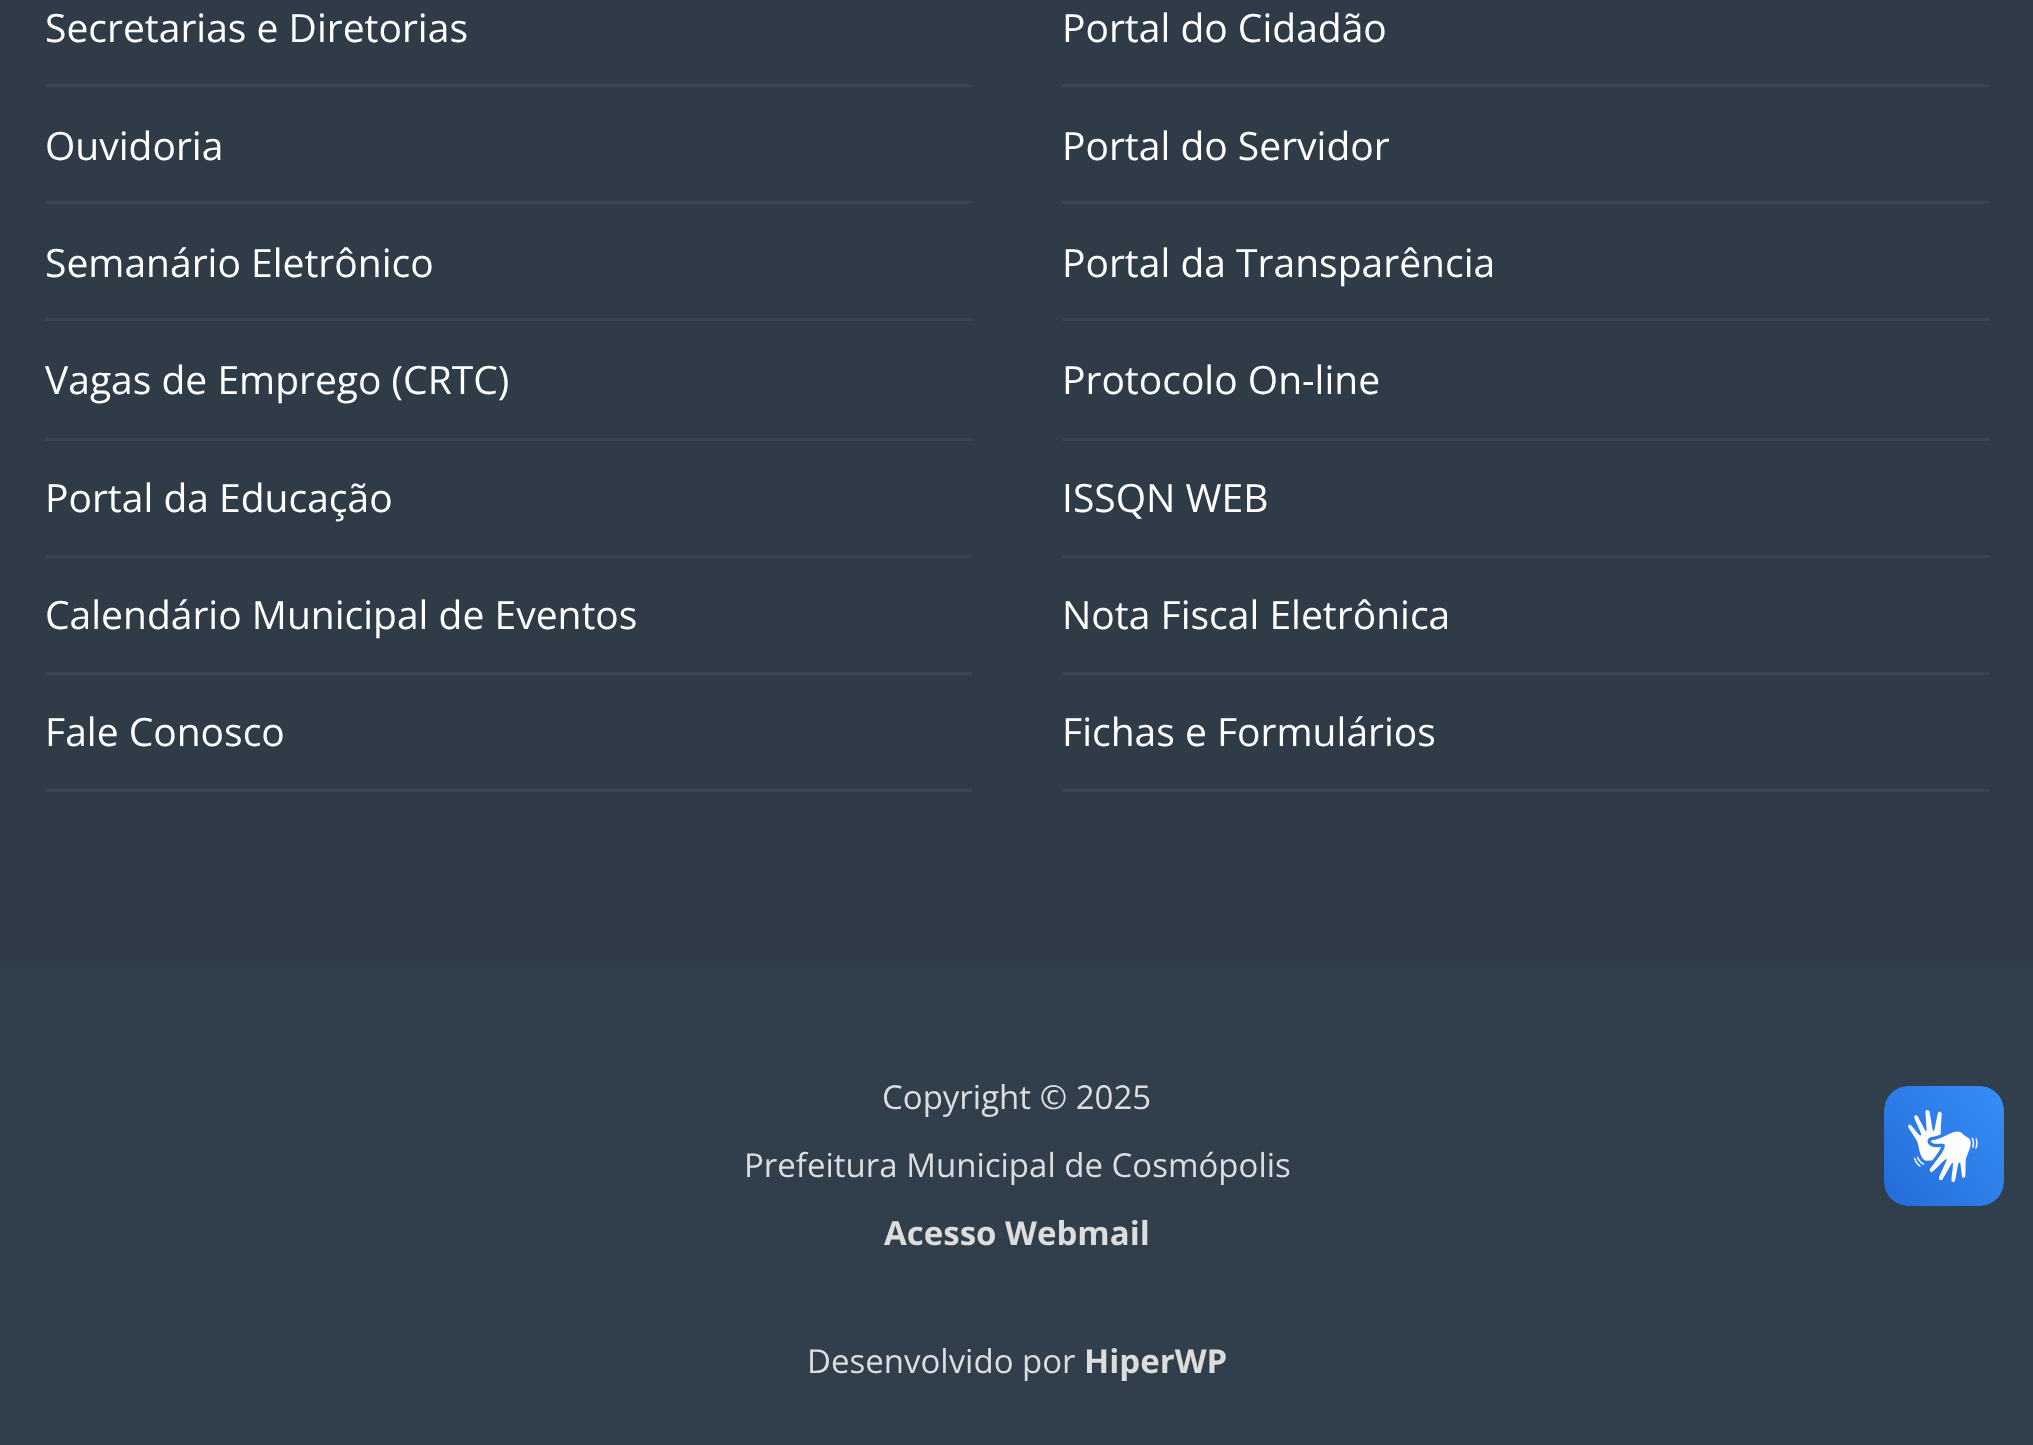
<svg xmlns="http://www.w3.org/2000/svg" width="2033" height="1445">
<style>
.a{font:39px Open Sans;fill:#fff}
.b{font:33px Open Sans;fill:#ddd}
.c{font:bold 33px Open Sans;fill:#ddd}
</style>
<rect width="100%" height="100%" fill="#2f3b47"/>
<path fill="#394550" d="M45 84h927v3H45z"/>
<path fill="#394550" d="M45 201h927v3H45z"/>
<path fill="#394550" d="M45 318h927v3H45z"/>
<path fill="#394550" d="M45 438h927v3H45z"/>
<path fill="#394550" d="M45 555h927v3H45z"/>
<path fill="#394550" d="M45 672h927v3H45z"/>
<path fill="#394550" d="M45 789h927v3H45z"/>
<path fill="#394550" d="M1062 84h927v3H1062z"/>
<path fill="#394550" d="M1062 201h927v3H1062z"/>
<path fill="#394550" d="M1062 318h927v3H1062z"/>
<path fill="#394550" d="M1062 438h927v3H1062z"/>
<path fill="#394550" d="M1062 555h927v3H1062z"/>
<path fill="#394550" d="M1062 672h927v3H1062z"/>
<path fill="#394550" d="M1062 789h927v3H1062z"/>
<path fill="#313e4b" d="M0 966h2033v479H0z"/>
<image href="1.png" x="1884" y="1086" width="120" height="120"/>
<text class="a" x="45" y="42">Secretarias e Diretorias</text>
<text class="a" x="45" y="160">Ouvidoria</text>
<text class="a" x="45" y="277">Semanário Eletrônico</text>
<text class="a" x="45" y="394">Vagas de Emprego (CRTC)</text>
<text class="a" x="45" y="512">Portal da Educação</text>
<text class="a" x="45" y="629">Calendário Municipal de Eventos</text>
<text class="a" x="45" y="746">Fale Conosco</text>
<text class="a" x="1062" y="42">Portal do Cidadão</text>
<text class="a" x="1062" y="160">Portal do Servidor</text>
<text class="a" x="1062" y="277">Portal da Transparência</text>
<text class="a" x="1062" y="394">Protocolo On-line</text>
<text class="a" x="1062" y="512">ISSQN WEB</text>
<text class="a" x="1062" y="629">Nota Fiscal Eletrônica</text>
<text class="a" x="1062" y="746">Fichas e Formulários</text>
<text class="b" x="882" y="1109">Copyright © 2025</text>
<text class="b" x="744" y="1177">Prefeitura Municipal de Cosmópolis</text>
<text class="c" x="884" y="1245">Acesso Webmail</text>
<text class="b" x="807" y="1373">Desenvolvido por</text>
<text class="c" x="1084" y="1373">HiperWP</text>
</svg>
